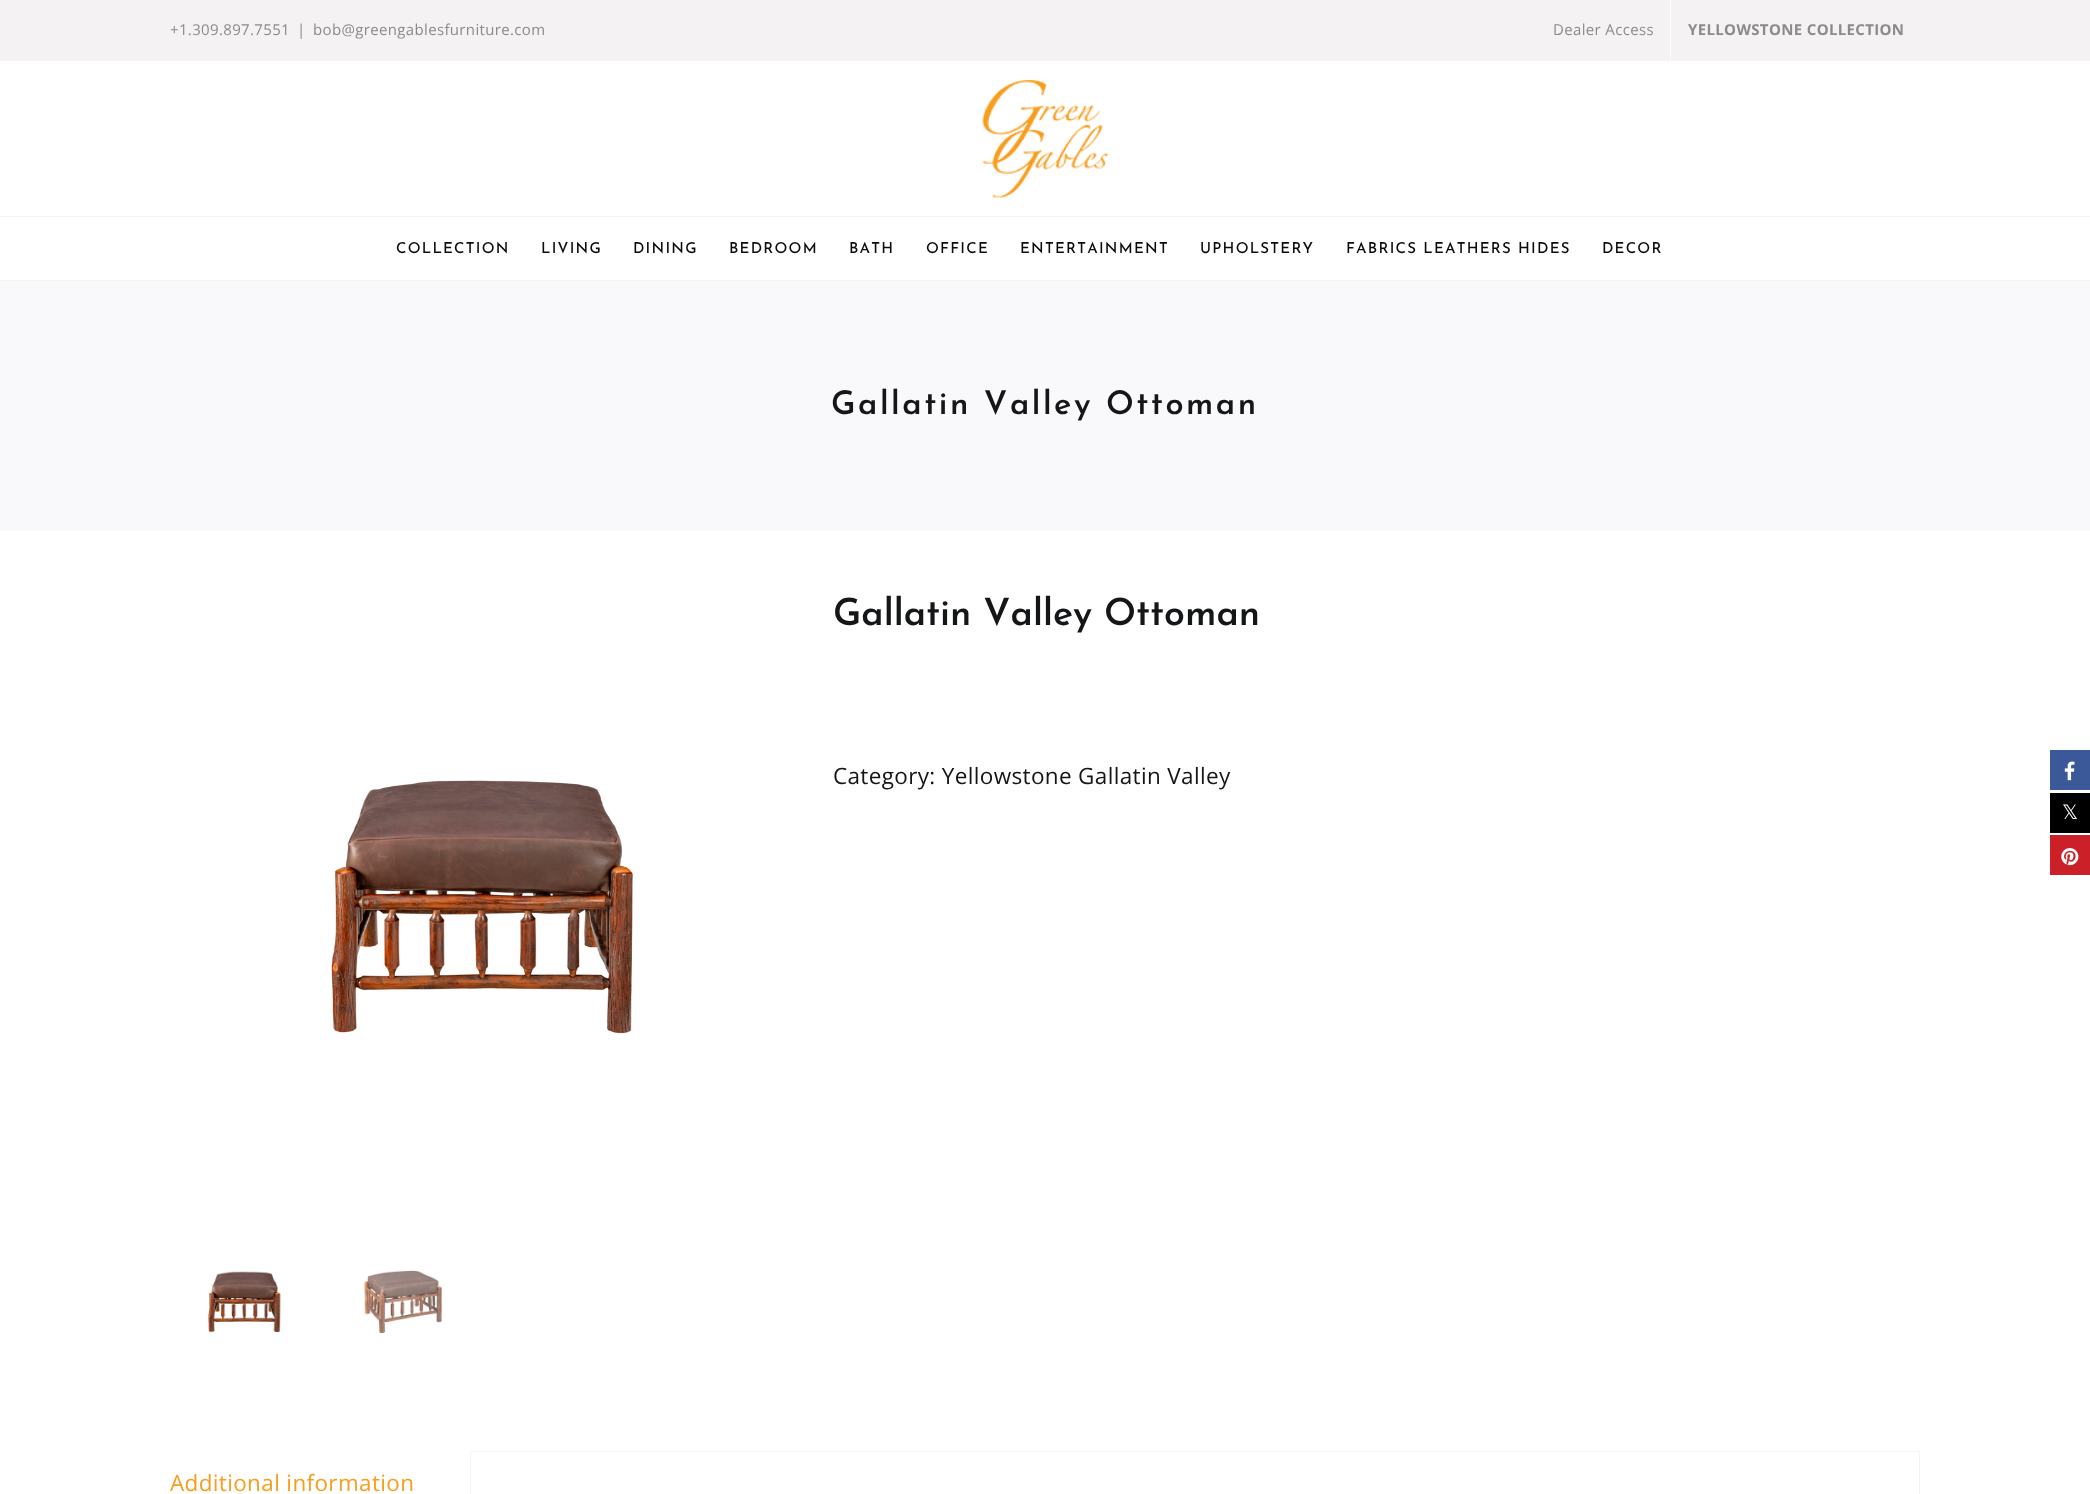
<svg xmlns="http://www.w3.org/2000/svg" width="2090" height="1494">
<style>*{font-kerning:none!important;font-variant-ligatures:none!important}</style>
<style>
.a{font:15px Open Sans;letter-spacing:0.35px;fill:#8b8b8b}
.b{font:bold 15px Open Sans;letter-spacing:0.35px;fill:#8b8b8b}
.c{font:500 15px Josefin Sans;letter-spacing:1.25px;fill:#0c0c0c}
.d{font:600 32.5px Josefin Sans;letter-spacing:2.5px;fill:#141617}
.e{font:600 37.5px Josefin Sans;fill:#141617}
.f{font:22.5px Open Sans;letter-spacing:0.35px;fill:#141617}
.g{font:22.5px Open Sans;letter-spacing:0.35px;fill:#f99d1c}
.h{font:20px DejaVu Sans;letter-spacing:0.35px;fill:#fff}
</style>
<rect width="100%" height="100%" fill="#fff"/>
<path fill="#f4f2f2" d="M0 0h2090v61H0z"/>
<path fill="#fff" d="M1670 0h1v60H1670z"/>
<path fill="#f4f2f2" d="M0 216h2090v1H0z"/>
<image href="1.png" x="982" y="80" width="126" height="118"/>
<path fill="#f4f2f2" d="M0 280h2090v1H0z"/>
<path fill="#f9f9fb" d="M0 281h2090v250H0z"/>
<image href="2.png" x="330" y="780" width="305" height="254"/>
<image href="3.png" x="208" y="1271" width="73" height="62"/>
<image href="4.png" x="364" y="1270" width="78" height="64"/>
<path fill="none" stroke="#f2f3f5" d="M470.5 1451.5h1449v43H470.5z"/>
<path fill="#3b5998" d="M2050 750h40v40H2050z"/>
<image href="5.png" x="2064" y="761" width="11" height="20"/>
<path fill="#000" d="M2050 793h40v40H2050z"/>
<path fill="#cb2027" d="M2050 835h40v40H2050z"/>
<image href="6.png" x="2061" y="848" width="18" height="18"/>
<text class="a" x="170" y="35">+1.309.897.7551</text>
<text class="a" x="297" y="35">|</text>
<text class="a" x="313" y="35">bob@greengablesfurniture.com</text>
<text class="a" x="1553" y="35">Dealer Access</text>
<text class="b" x="1688" y="35">YELLOWSTONE COLLECTION</text>
<text class="c" x="396" y="253">COLLECTION</text>
<text class="c" x="541" y="253">LIVING</text>
<text class="c" x="633" y="253">DINING</text>
<text class="c" x="729" y="253">BEDROOM</text>
<text class="c" x="849" y="253">BATH</text>
<text class="c" x="926" y="253">OFFICE</text>
<text class="c" x="1020" y="253">ENTERTAINMENT</text>
<text class="c" x="1200" y="253">UPHOLSTERY</text>
<text class="c" x="1346" y="253">FABRICS LEATHERS HIDES</text>
<text class="c" x="1602" y="253">DECOR</text>
<text class="d" x="831" y="414">Gallatin Valley Ottoman</text>
<text class="e" x="833" y="625">Gallatin Valley Ottoman</text>
<text class="f" x="833" y="784">Category: Yellowstone Gallatin Valley</text>
<text class="g" x="170" y="1491">Additional information</text>
<text class="h" x="2062" y="819">𝕏</text>
</svg>
